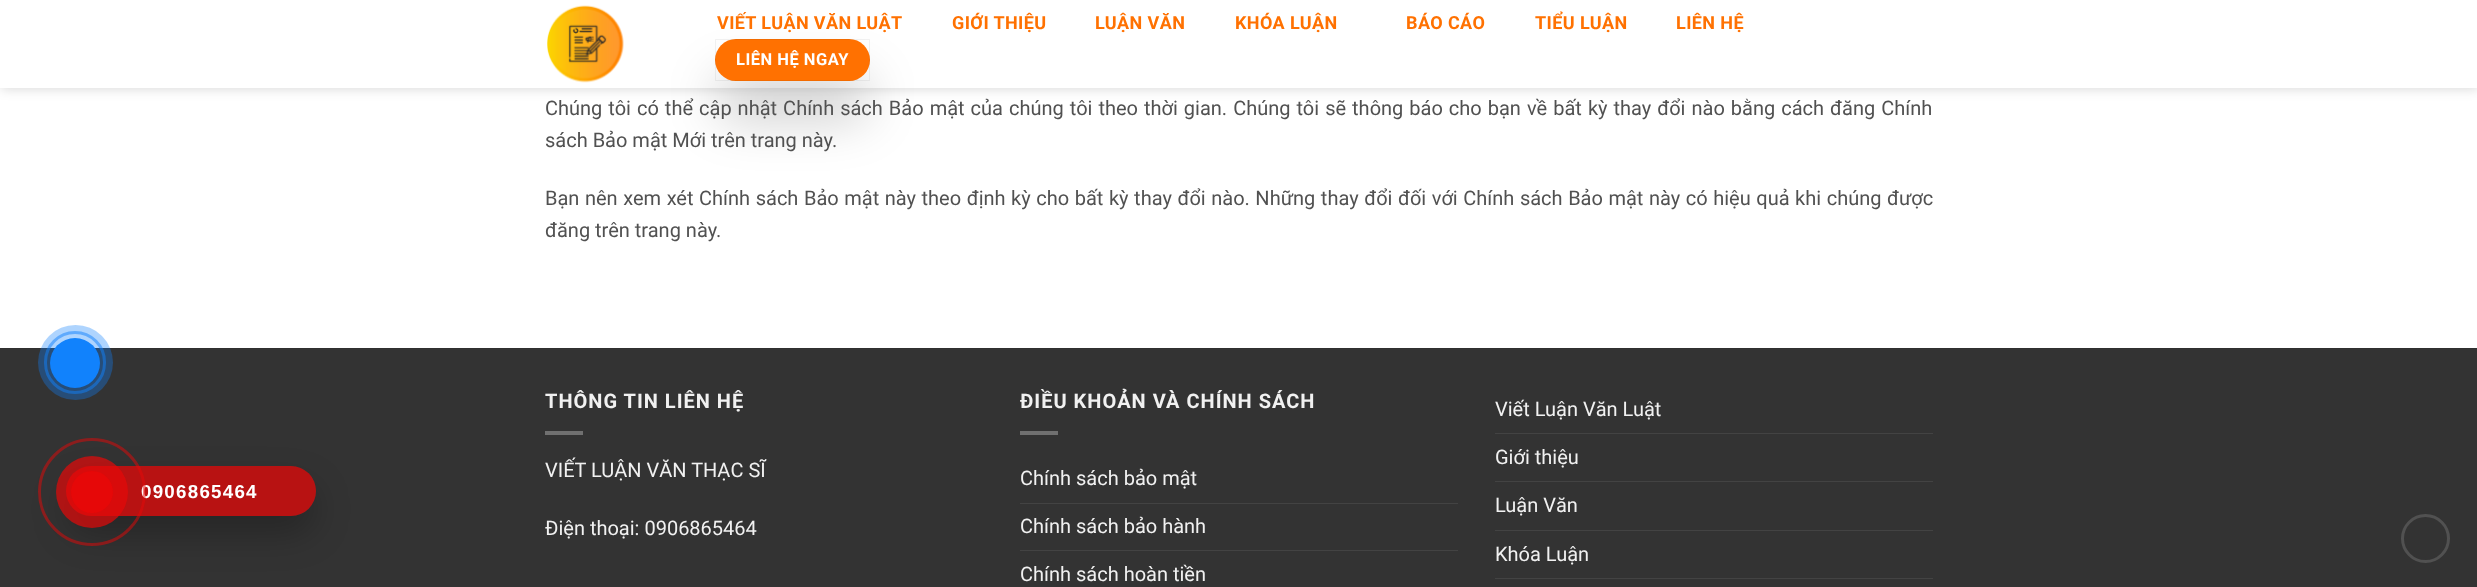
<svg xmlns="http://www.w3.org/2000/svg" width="2477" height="587">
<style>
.a{font:bold 18px Roboto;letter-spacing:0.4px;fill:#ff7101}
.b{font:bold 16.5px Roboto;letter-spacing:0.5px;fill:#fff}
.c{font:20px Roboto;fill:#515151}
.d{font:bold 20px Roboto;letter-spacing:1px;fill:#f1f1f1}
.e{font:20px Roboto;fill:#f1f1f1}
.f{font:bold 18.75px Liberation Sans;letter-spacing:1.25px;fill:#fff}
</style>
<defs>
<clipPath id="clip1"><path d="M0 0h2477v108h-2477zm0 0h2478v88h-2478z" clip-rule="evenodd"/></clipPath>
<clipPath id="clip2"><path d="M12 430h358v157h-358zm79 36h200c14 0 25 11 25 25c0 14-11 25-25 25h-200c-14 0-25-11-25-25c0-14 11-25 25-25z" clip-rule="evenodd"/></clipPath>
</defs>
<rect width="100%" height="100%" fill="#fff"/>
<path fill="#333" d="M0 349h2477v238H0z"/>
<path fill="#303030" d="M0 348h2477v1H0z"/>
<rect fill="none" stroke="#1182fc80" stroke-width="3" x="45.5" y="332.5" width="59" height="60" rx="29.5"/>
<circle fill="#1182fc57" cx="75.5" cy="362.5" r="37.5"/>
<circle fill="#1182fc" cx="75" cy="363" r="25"/>
<g clip-path="url(#clip1)">
<path fill="#00000026" filter="blur(6px)" d="M1 1h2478v88H1z"/>
</g>
<image href="1.png" x="547" y="5" width="77" height="78"/>
<path fill="#ffffffe6" d="M0 87h2477v1H0z"/>
<rect fill="#00000033" filter="blur(25px)" x="715" y="76" width="155" height="43" rx="21.5"/>
<rect fill="#ff7101" x="715" y="39" width="155" height="42" rx="21"/>
<path fill="none" stroke="#0000000d" d="M715.5 39.5h154v41H715.5z"/>
<path fill="#707070" d="M545 431h38v4H545z"/>
<path fill="#707070" d="M1020 431h38v4H1020z"/>
<path fill="#434343" d="M1020 503h438v1H1020z"/>
<path fill="#434343" d="M1020 550h438v1H1020z"/>
<path fill="#434343" d="M1495 433h438v1H1495z"/>
<path fill="#434343" d="M1495 481h438v1H1495z"/>
<path fill="#434343" d="M1495 530h438v1H1495z"/>
<path fill="#434343" d="M1495 578h438v1H1495z"/>
<circle fill="none" stroke="#515151" stroke-width="3" cx="2425.5" cy="538.5" r="23"/>
<g clip-path="url(#clip2)">
<rect fill="#00000040" filter="blur(17.5px)" x="66" y="484" width="250" height="50" rx="25"/>
</g>
<rect fill="#e60808bf" x="66" y="466" width="250" height="50" rx="25"/>
<text class="a" x="717" y="29">VIẾT LUẬN VĂN LUẬT</text>
<text class="a" x="952" y="29">GIỚI THIỆU</text>
<text class="a" x="1095" y="29">LUẬN VĂN</text>
<text class="a" x="1235" y="29">KHÓA LUẬN</text>
<text class="a" x="1406" y="29">BÁO CÁO</text>
<text class="a" x="1535" y="29">TIỂU LUẬN</text>
<text class="a" x="1676" y="29">LIÊN HỆ</text>
<text class="b" x="736" y="65">LIÊN HỆ NGAY</text>
<text class="c" x="545" y="115" word-spacing="1.05">Chúng tôi có thể cập nhật Chính sách Bảo mật của chúng tôi theo thời gian. Chúng tôi sẽ thông báo cho bạn về bất kỳ thay đổi nào bằng cách đăng Chính</text>
<text class="c" x="545" y="147">sách Bảo mật Mới trên trang này.</text>
<text class="c" x="545" y="205" word-spacing="0.6">Bạn nên xem xét Chính sách Bảo mật này theo định kỳ cho bất kỳ thay đổi nào. Những thay đổi đối với Chính sách Bảo mật này có hiệu quả khi chúng được</text>
<text class="c" x="545" y="237">đăng trên trang này.</text>
<text class="d" x="545" y="408">THÔNG TIN LIÊN HỆ</text>
<text class="e" x="545" y="477">VIẾT LUẬN VĂN THẠC SĨ</text>
<text class="e" x="545" y="535">Điện thoại: 0906865464</text>
<text class="d" x="1020" y="408">ĐIỀU KHOẢN VÀ CHÍNH SÁCH</text>
<text class="e" x="1020" y="485">Chính sách bảo mật</text>
<text class="e" x="1020" y="533">Chính sách bảo hành</text>
<text class="e" x="1020" y="581">Chính sách hoàn tiền</text>
<text class="e" x="1495" y="416">Viết Luận Văn Luật</text>
<text class="e" x="1495" y="464">Giới thiệu</text>
<text class="e" x="1495" y="512">Luận Văn</text>
<text class="e" x="1495" y="561">Khóa Luận</text>
<text class="f" x="141" y="498">0906865464</text>
<circle fill="none" stroke="#e6080880" stroke-width="3" cx="92" cy="492" r="52.5"/>
<circle fill="#e60808b3" cx="92" cy="492" r="36"/>
<circle fill="#e60808" cx="92" cy="492" r="21"/>
</svg>
